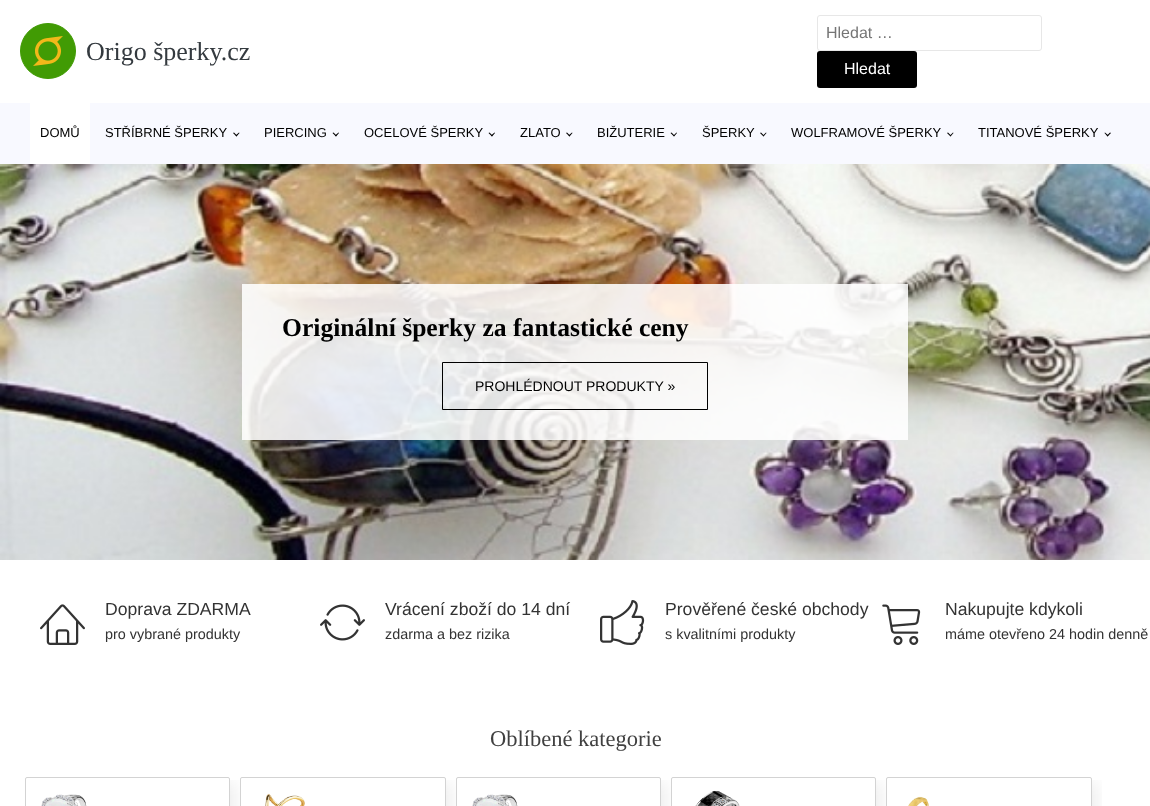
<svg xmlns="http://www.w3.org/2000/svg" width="1150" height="806">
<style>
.a{font:26px Liberation Serif;fill:#343a3f}
.b{font:16px Liberation Sans;fill:#757575}
.c{font:16px Liberation Sans;fill:#fff}
.d{font:13px Liberation Sans;fill:#000}
.e{font:bold 25.6px Liberation Serif;fill:#000}
.f{font:14px Liberation Sans;fill:#000}
.g{font:17.6px Liberation Sans;fill:#333}
.h{font:14.4px Liberation Sans;fill:#333}
.i{font:22.5px Liberation Serif;fill:#404040}
</style>
<defs>
<clipPath id="clip1"><path d="M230 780h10v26H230z"/></clipPath>
<clipPath id="clip2"><path d="M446 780h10v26H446z"/></clipPath>
<clipPath id="clip3"><path d="M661 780h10v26H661z"/></clipPath>
<clipPath id="clip4"><path d="M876 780h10v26H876z"/></clipPath>
<clipPath id="clip5"><path d="M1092 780h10v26H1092z"/></clipPath>
</defs>
<rect width="100%" height="100%" fill="#fff"/>
<circle fill="#419b04" stroke="#419b04" cx="48" cy="51" r="27.5"/>
<image href="1.png" x="33" y="36" width="30" height="30"/>
<rect fill="none" stroke="#e7e7e7" x="817.5" y="15.5" width="224" height="35" rx="2.5"/>
<rect fill="#000" x="817" y="51" width="100" height="37" rx="3"/>
<path fill="#f8f9ff" d="M0 103h1150v61H0z"/>
<path fill="#fff" d="M30 103h60v61H30z"/>
<path fill="#000" d="M239.5 133l-3 3.5l-1-1l3.5-3z"/>
<path fill="#000" d="M237 135.5l-.5 1l-3.5-3.5l1-.5z"/>
<path fill="#000" d="M339 133l-3 3.5l-1-1l3.5-3z"/>
<path fill="#000" d="M336.5 135.5l-.5 1l-3.5-3.5l1-.5z"/>
<path fill="#000" d="M495 133l-3 3.5l-1-1l3.5-3z"/>
<path fill="#000" d="M492.5 135.5l-.5 1l-3.5-3.5l1-.5z"/>
<path fill="#000" d="M572.5 133l-3 3.5l-1-1l3.5-3z"/>
<path fill="#000" d="M570 135.5l-.5 1l-3.5-3.5l1-.5z"/>
<path fill="#000" d="M677 133l-3 3.5l-.5-1l3-3z"/>
<path fill="#000" d="M674.5 135.5l-.5 1l-3.5-3.5l1-.5z"/>
<path fill="#000" d="M766.5 133l-3 3.5l-.5-1l3-3z"/>
<path fill="#000" d="M764 135.5l-.5 1l-3.5-3.5l1-.5z"/>
<path fill="#000" d="M953.5 133l-3 3.5l-.5-1l3-3z"/>
<path fill="#000" d="M951 135.5l-.5 1l-3.5-3.5l1-.5z"/>
<path fill="#000" d="M1111 133l-3.5 3.5l-.5-1l3-3z"/>
<path fill="#000" d="M1108.5 135.5l-1 1l-3-3.5l.5-.5z"/>
<image href="2.png" x="0" y="164" width="1150" height="396"/>
<path fill="#ffffffe0" d="M242 284h666v156H242z"/>
<path fill="none" stroke="#000" d="M442.5 362.5h265v47H442.5z"/>
<image href="3.png" x="40" y="604" width="45" height="41"/>
<image href="4.png" x="320" y="604" width="45" height="37"/>
<image href="5.png" x="600" y="600" width="45" height="45"/>
<image href="6.png" x="882" y="604" width="39" height="41"/>
<g clip-path="url(#clip1)">
<rect fill="#00000012" filter="blur(8px)" x="30" y="782" width="205" height="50" rx="2"/>
</g>
<rect fill="none" stroke="#d3d3d3" x="25.5" y="777.5" width="204" height="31" rx="1.5"/>
<image href="7.png" x="41" y="794" width="46" height="12"/>
<g clip-path="url(#clip2)">
<rect fill="#00000012" filter="blur(8px)" x="245" y="782" width="206" height="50" rx="2"/>
</g>
<rect fill="none" stroke="#d3d3d3" x="240.5" y="777.5" width="205" height="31" rx="1.5"/>
<image href="8.png" x="265" y="793" width="40" height="13"/>
<g clip-path="url(#clip3)">
<rect fill="#00000012" filter="blur(8px)" x="461" y="782" width="205" height="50" rx="2"/>
</g>
<rect fill="none" stroke="#d3d3d3" x="456.5" y="777.5" width="204" height="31" rx="1.5"/>
<image href="7.png" x="472" y="794" width="46" height="12"/>
<g clip-path="url(#clip4)">
<rect fill="#00000012" filter="blur(8px)" x="676" y="782" width="205" height="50" rx="2"/>
</g>
<rect fill="none" stroke="#d3d3d3" x="671.5" y="777.5" width="204" height="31" rx="1.5"/>
<image href="9.png" x="695" y="790" width="45" height="16"/>
<g clip-path="url(#clip5)">
<rect fill="#00000012" filter="blur(8px)" x="891" y="782" width="206" height="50" rx="2"/>
</g>
<rect fill="none" stroke="#d3d3d3" x="886.5" y="777.5" width="205" height="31" rx="1.5"/>
<image href="10.png" x="908" y="796" width="21" height="10"/>
<text class="a" x="86" y="60">Origo šperky.cz</text>
<text class="b" x="826" y="38">Hledat …</text>
<text class="c" x="844" y="74">Hledat</text>
<text class="d" x="40" y="137">DOMŮ</text>
<text class="d" x="105" y="137">STŘÍBRNÉ ŠPERKY</text>
<text class="d" x="264" y="137">PIERCING</text>
<text class="d" x="364" y="137">OCELOVÉ ŠPERKY</text>
<text class="d" x="520" y="137">ZLATO</text>
<text class="d" x="597" y="137">BIŽUTERIE</text>
<text class="d" x="702" y="137">ŠPERKY</text>
<text class="d" x="791" y="137">WOLFRAMOVÉ ŠPERKY</text>
<text class="d" x="978" y="137">TITANOVÉ ŠPERKY</text>
<text class="e" x="282" y="336">Originální šperky za fantastické ceny</text>
<text class="f" x="475" y="391">PROHLÉDNOUT PRODUKTY »</text>
<text class="g" x="105" y="615">Doprava ZDARMA</text>
<text class="h" x="105" y="639">pro vybrané produkty</text>
<text class="g" x="385" y="615">Vrácení zboží do 14 dní</text>
<text class="h" x="385" y="639">zdarma a bez rizika</text>
<text class="g" x="665" y="615">Prověřené české obchody</text>
<text class="h" x="665" y="639">s kvalitními produkty</text>
<text class="g" x="945" y="615">Nakupujte kdykoli</text>
<text class="h" x="945" y="639">máme otevřeno 24 hodin denně</text>
<text class="i" x="490" y="746">Oblíbené kategorie</text>
</svg>
